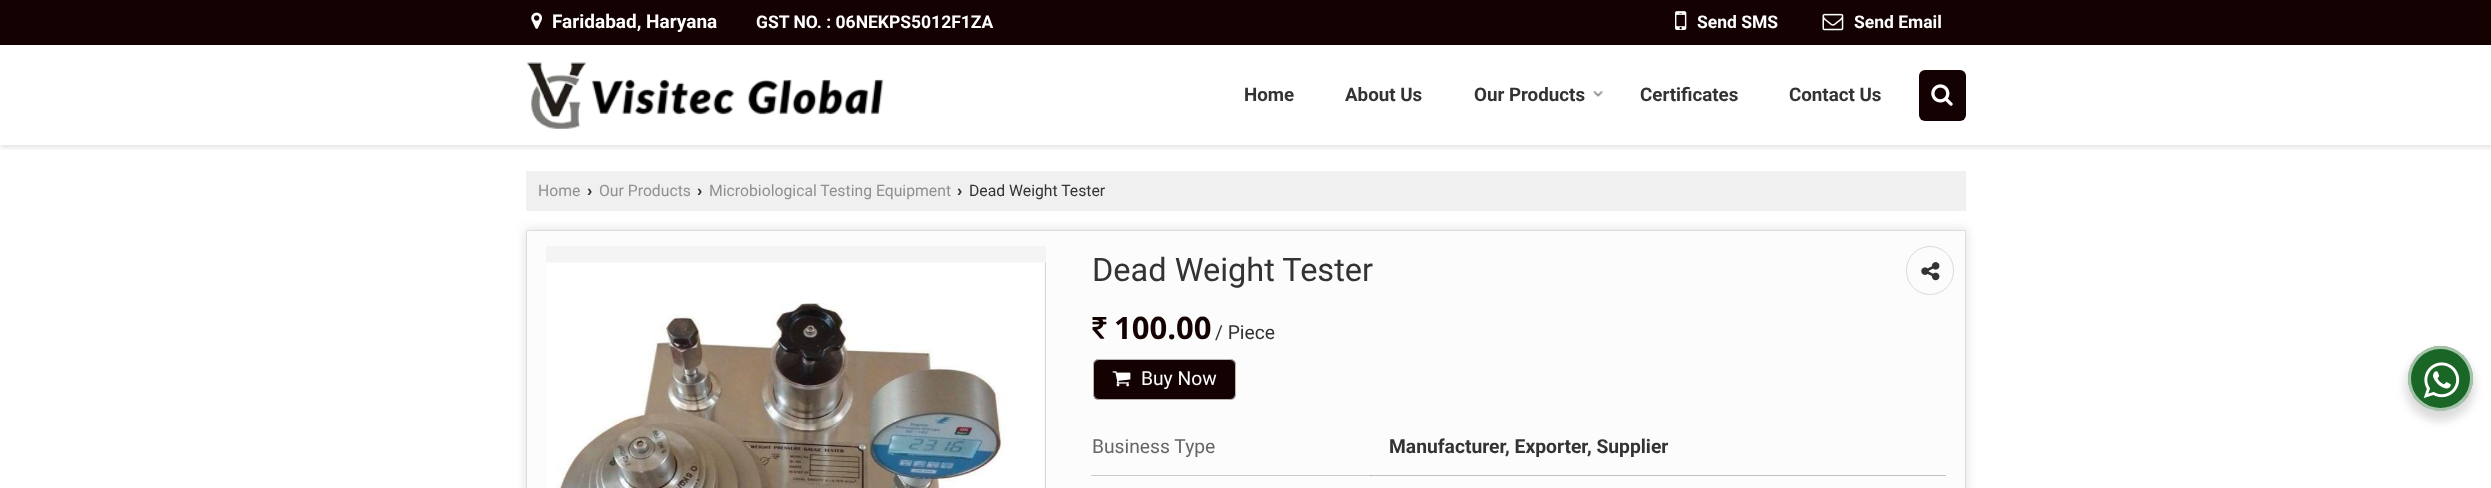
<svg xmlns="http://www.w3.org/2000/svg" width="2491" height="488">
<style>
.a{font:bold 19px Roboto;fill:#fff}
.b{font:bold 17.5px Roboto;fill:#fff}
.c{font:bold 18.75px Roboto;fill:#333}
.d{font:15.75px Roboto;fill:#909090}
.e{font:bold 15.75px Liberation Sans;fill:#333}
.f{font:15.75px Roboto;fill:#333}
.g{font:32.5px Roboto;fill:#333}
.h{font:bold 31px Open Sans;fill:#140202}
.i{font:19.25px Roboto;fill:#333}
.j{font:19.25px Roboto;fill:#fff}
.k{font:19.25px Roboto;fill:#656565}
.l{font:bold 19.25px Roboto;fill:#333}
</style>
<defs>
<clipPath id="clip1"><path d="M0 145h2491v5H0z"/></clipPath>
</defs>
<rect width="100%" height="100%" fill="#fff"/>
<path fill="#140202" d="M0 0h2491v45H0z"/>
<image href="1.png" x="531" y="12" width="11" height="17"/>
<image href="2.png" x="1675" y="11" width="12" height="19"/>
<image href="3.png" x="1822" y="13" width="22" height="18"/>
<g clip-path="url(#clip1)">
<path fill="#0000001a" filter="blur(2px)" d="M1 48h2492v100H1z"/>
</g>
<image href="4.png" x="526" y="62" width="358" height="67"/>
<image href="5.png" x="1593" y="91" width="10" height="6"/>
<rect fill="#140202" x="1919" y="70" width="47" height="51" rx="6"/>
<image href="6.png" x="1931" y="84" width="22" height="22"/>
<path fill="#f0f0f0" d="M526 171h1440v40H526z"/>
<path fill="#ccccccab" filter="blur(6px)" d="M526 230h1440v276H526z"/>
<path fill="#fcfcfc" stroke="#dbdbdb" d="M526.5 230.5h1439v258H526.5z"/>
<path fill="#f4f4f4" d="M546 246h500v242H546z"/>
<image href="7.png" x="546" y="262" width="500" height="226"/>
<rect fill="none" stroke="#dbdbdb" x="1906.5" y="246.5" width="47" height="48" rx="23.5"/>
<image href="8.png" x="1921" y="262" width="19" height="19"/>
<image href="9.png" x="1092" y="317" width="15" height="22"/>
<rect fill="#140202" x="1093" y="359" width="143" height="41" rx="6"/>
<rect fill="none" stroke="#ffffffb3" x="1093.5" y="359.5" width="142" height="40" rx="5.5"/>
<image href="10.png" x="1112" y="371" width="19" height="16"/>
<path fill="#cacaca" d="M1091 475h280v1H1091z"/>
<path fill="#c1c1c1" d="M1370 475h576v1H1370z"/>
<path fill="#acacac" d="M1370 475h1v1H1370z"/>
<rect fill="#00000024" filter="blur(5px)" x="2405" y="351" width="70" height="70" rx="35"/>
<circle fill="#196626" cx="2440.5" cy="378.5" r="32.5"/>
<circle fill="none" stroke="#ffffff99" stroke-width="3" cx="2440.5" cy="378.5" r="31"/>
<image href="11.png" x="2423" y="362" width="37" height="36"/>
<text class="a" x="552" y="28">Faridabad, Haryana</text>
<text class="b" x="756" y="28">GST NO. : 06NEKPS5012F1ZA</text>
<text class="b" x="1697" y="28">Send SMS</text>
<text class="b" x="1854" y="28">Send Email</text>
<text class="c" x="1244" y="101">Home</text>
<text class="c" x="1345" y="101">About Us</text>
<text class="c" x="1474" y="101">Our Products</text>
<text class="c" x="1640" y="101">Certificates</text>
<text class="c" x="1789" y="101">Contact Us</text>
<text class="d" x="538" y="196">Home</text>
<text class="e" x="587" y="196">›</text>
<text class="d" x="599" y="196">Our Products</text>
<text class="e" x="697" y="196">›</text>
<text class="d" x="709" y="196">Microbiological Testing Equipment</text>
<text class="e" x="957" y="196">›</text>
<text class="f" x="969" y="196">Dead Weight Tester</text>
<text class="g" x="1092" y="281">Dead Weight Tester</text>
<text class="h" x="1114" y="339">100.00</text>
<text class="i" x="1215" y="339">/ Piece</text>
<text class="j" x="1141" y="385">Buy Now</text>
<text class="k" x="1092" y="453">Business Type</text>
<text class="l" x="1389" y="453">Manufacturer, Exporter, Supplier</text>
</svg>
